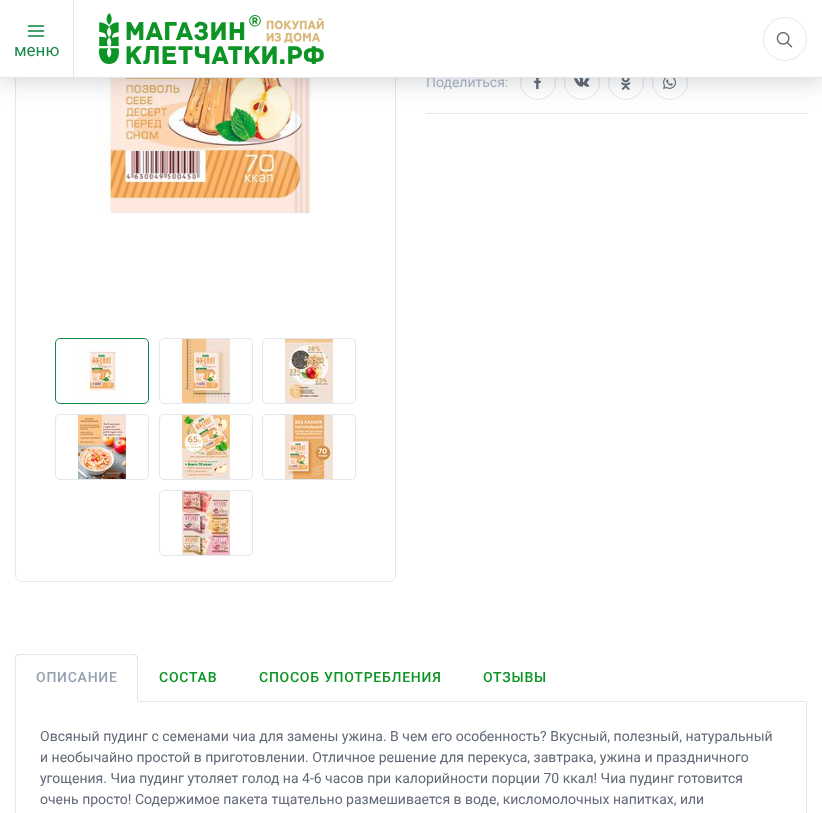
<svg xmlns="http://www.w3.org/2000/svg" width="822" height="813">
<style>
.a{font:17px Roboto;fill:#178a4a}
.b{font:14px Roboto;fill:#9da9b9}
.c{font:500 14px Roboto;letter-spacing:0.75px;fill:#94a1b3}
.d{font:500 14px Roboto;letter-spacing:0.75px;fill:#0c9425}
.e{font:14px Roboto;fill:#606975}
</style>
<rect width="100%" height="100%" fill="#fff"/>
<rect fill="none" stroke="#e1e7ec" x="15.5" y="-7.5" width="380" height="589" rx="6.5"/>
<image href="4.png" x="98" y="78" width="214" height="136"/>
<circle fill="none" stroke="#e1e7ec" cx="538" cy="82" r="17.5"/>
<image href="12.png" x="534" y="78" width="7" height="11"/>
<circle fill="none" stroke="#e1e7ec" cx="582" cy="82" r="17.5"/>
<image href="13.png" x="574" y="78" width="16" height="9"/>
<circle fill="none" stroke="#e1e7ec" cx="626" cy="82" r="17.5"/>
<image href="14.png" x="621" y="78" width="10" height="12"/>
<circle fill="none" stroke="#e1e7ec" cx="670" cy="82" r="17.5"/>
<image href="15.png" x="663" y="78" width="13" height="11"/>
<path fill="#e1e7ec" d="M426 113h381v1H426z"/>
<path fill="#2f384438" filter="blur(12.5px)" d="M0 3h822v78H0z"/>
<path fill="#fff" d="M0 0h822v77H0z"/>
<path fill="#e1e7ec" d="M73 0h1v77H73z"/>
<image href="1.png" x="27" y="25" width="18" height="12"/>
<image href="2.png" x="99" y="13" width="225" height="51"/>
<circle fill="none" stroke="#e1e7ec" cx="785" cy="39" r="21.5"/>
<image href="3.png" x="776" y="32" width="17" height="16"/>
<rect fill="none" stroke="#178a4a" x="55.5" y="338.5" width="93" height="65" rx="4.5"/>
<image href="5.png" x="78" y="339" width="48" height="64"/>
<rect fill="none" stroke="#e1e7ec" x="159.5" y="338.5" width="93" height="65" rx="4.5"/>
<image href="6.png" x="182" y="339" width="48" height="64"/>
<rect fill="none" stroke="#e1e7ec" x="262.5" y="338.5" width="93" height="65" rx="4.5"/>
<image href="7.png" x="285" y="339" width="48" height="64"/>
<rect fill="none" stroke="#e1e7ec" x="55.5" y="414.5" width="93" height="65" rx="4.5"/>
<image href="8.png" x="78" y="415" width="48" height="64"/>
<rect fill="none" stroke="#e1e7ec" x="159.5" y="414.5" width="93" height="65" rx="4.5"/>
<image href="9.png" x="182" y="415" width="48" height="64"/>
<rect fill="none" stroke="#e1e7ec" x="262.5" y="414.5" width="93" height="65" rx="4.5"/>
<image href="10.png" x="285" y="415" width="48" height="64"/>
<rect fill="none" stroke="#e1e7ec" x="159.5" y="490.5" width="93" height="65" rx="4.5"/>
<image href="11.png" x="182" y="491" width="48" height="64"/>
<path fill="#e1e7ec" d="M138 701h669v1H138z"/>
<path fill="#e1e7ec" d="M20 654c-2 0-3 0-4 1l1 1l3-1h113l3 1l1-1c-1-1-3-1-4-1z"/>
<path fill="#e1e7ec" d="M138 702v-43c0-1 0-3-1-4l-1 1c0 1 1 2 1 3v42z"/>
<path fill="#fff" d="M138 702l-1-1h-121l-1 1z"/>
<path fill="#e1e7ec" d="M15 702l1-1v-42c0-1 0-2 1-3l-1-1c0 1-1 3-1 4z"/>
<path fill="#e1e7ec" fill-rule="evenodd" d="M15 702h792v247c0 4-3 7-7 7h-778c-4 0-7-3-7-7zm1 0h790v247c0 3-3 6-6 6h-778c-3 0-6-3-6-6z"/>
<text class="a" x="14" y="56">меню</text>
<text class="b" x="426" y="87">Поделиться:</text>
<path fill="#e1e7ec" d="M0 77h822v1H0z"/>
<text class="c" x="36" y="682">ОПИСАНИЕ</text>
<text class="d" x="159" y="682">СОСТАВ</text>
<text class="d" x="259" y="682">СПОСОБ УПОТРЕБЛЕНИЯ</text>
<text class="d" x="483" y="682">ОТЗЫВЫ</text>
<text class="e" x="40" y="741">Овсяный пудинг с семенами чиа для замены ужина. В чем его особенность? Вкусный, полезный, натуральный</text>
<text class="e" x="40" y="762">и необычайно простой в приготовлении. Отличное решение для перекуса, завтрака, ужина и праздничного</text>
<text class="e" x="40" y="783">угощения. Чиа пудинг утоляет голод на 4-6 часов при калорийности порции 70 ккал! Чиа пудинг готовится</text>
<text class="e" x="40" y="804">очень просто! Содержимое пакета тщательно размешивается в воде, кисломолочных напитках, или</text>
</svg>
